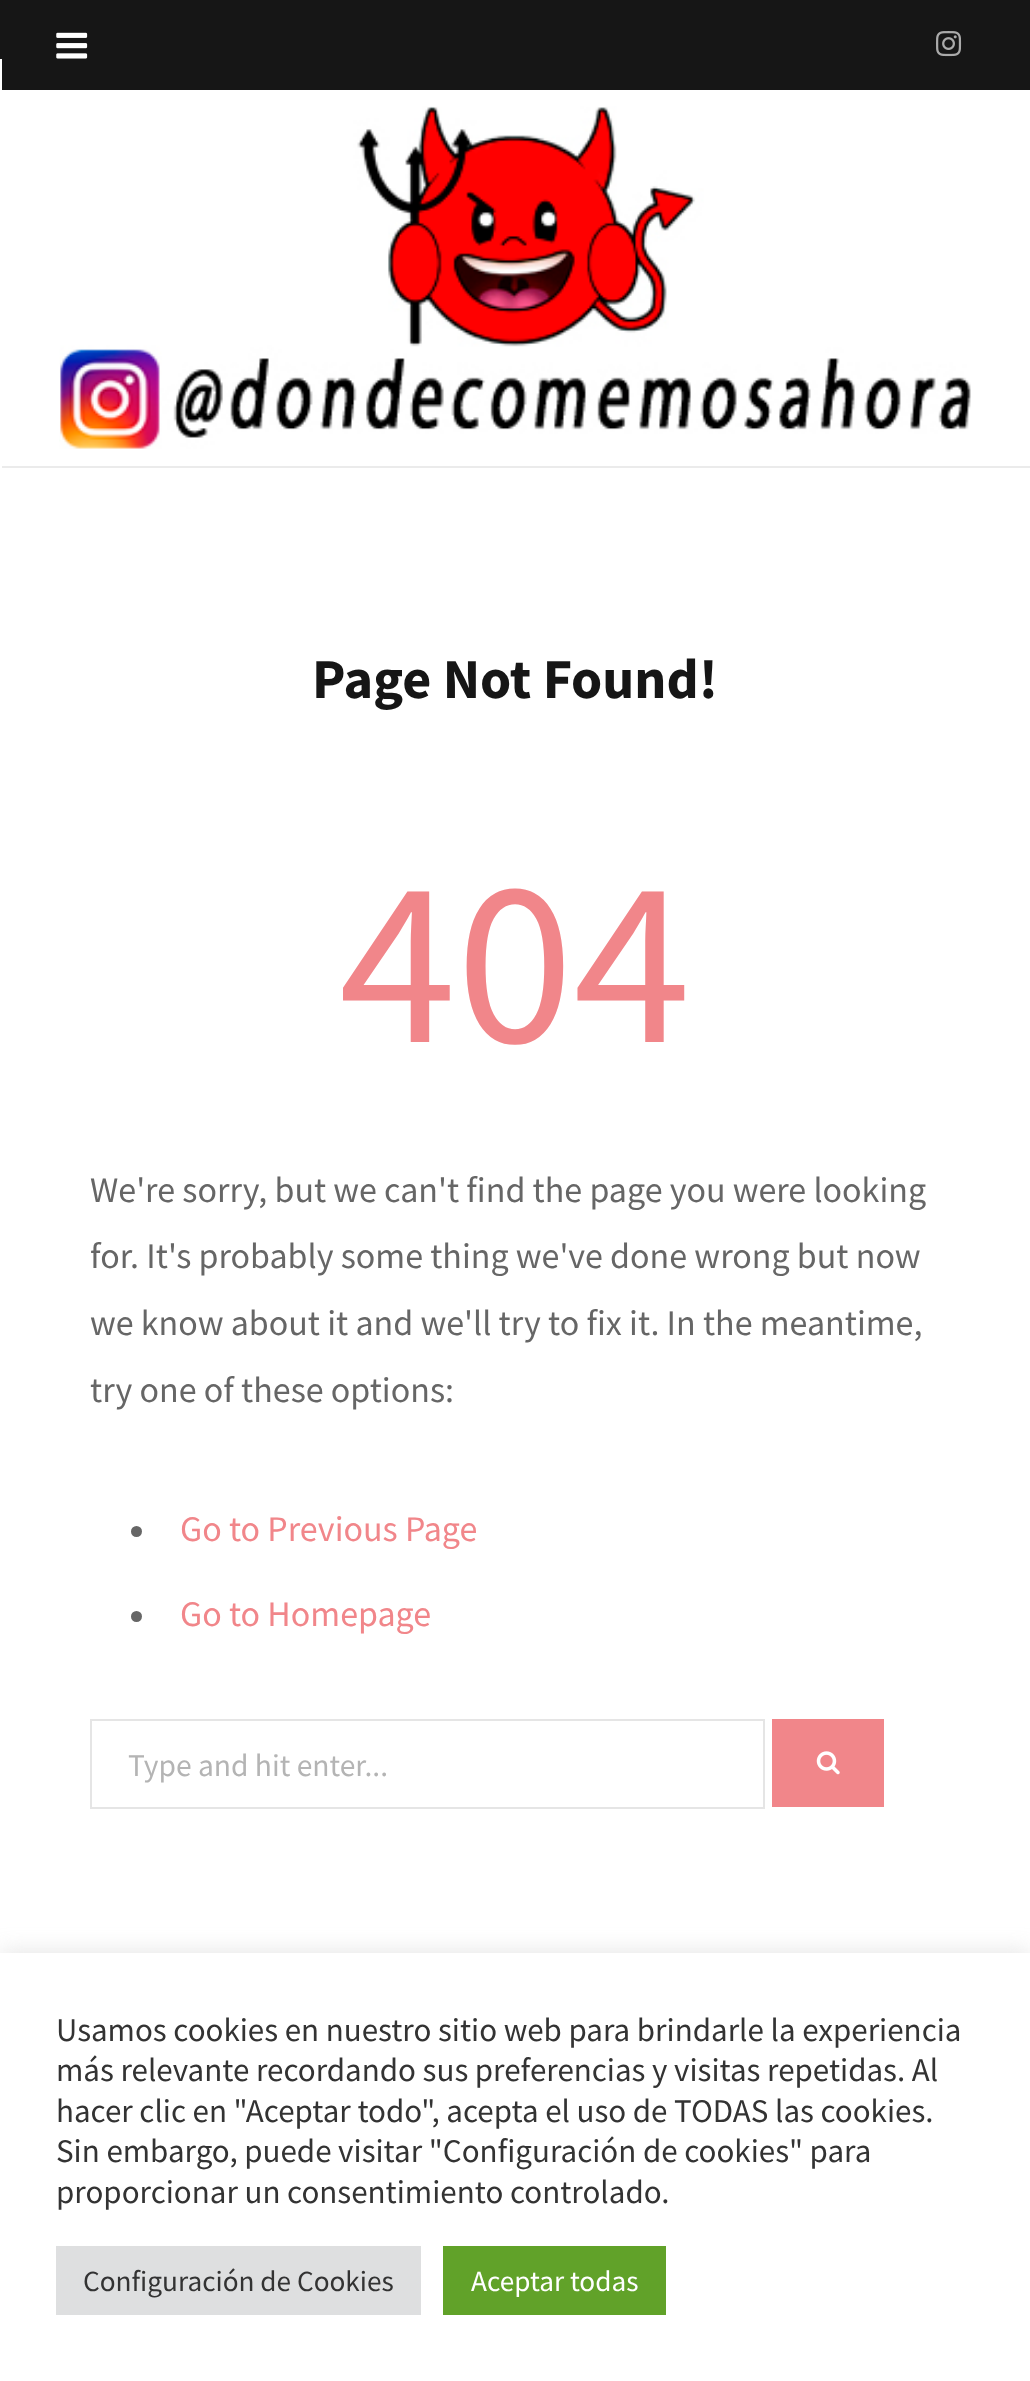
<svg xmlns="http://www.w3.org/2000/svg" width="1030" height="2381">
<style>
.a{font:bold 56.25px Source Sans Pro;fill:#161616}
.b{font:236px Source Sans Pro;fill:#f1868a}
.c{font:36px Source Sans Pro;fill:#666}
.d{font:36px Source Sans Pro;fill:#f1868a}
.e{font:31.5px Source Sans Pro;fill:#b4b4b4}
.f{font:33px Source Sans Pro;fill:#333}
.g{font:29.25px Source Sans Pro;fill:#333}
.h{font:29.25px Source Sans Pro;fill:#fff}
</style>
<rect width="100%" height="100%" fill="#fff"/>
<path fill="#ebebeb" d="M0 466h1030v2H0z"/>
<path fill="#fff" d="M0 466h2v2H0z"/>
<path fill="#161616" d="M0 0h2v59H0z"/>
<path fill="#161616" d="M2 0h1028v90H2z"/>
<image href="1.png" x="56" y="32" width="32" height="27"/>
<image href="2.png" x="936" y="31" width="26" height="26"/>
<image href="3.png" x="59" y="106" width="912" height="343"/>
<circle fill="#666" cx="136.5" cy="1531.5" r="5.5"/>
<circle fill="#666" cx="136.5" cy="1616.5" r="5.5"/>
<path fill="none" stroke="#e5e5e5" stroke-width="2" d="M91 1720h673v88H91z"/>
<path fill="#f1868a" d="M772 1719h112v88H772z"/>
<image href="4.png" x="816" y="1751" width="24" height="24"/>
<path fill="#acabab4d" filter="blur(11px)" d="M0 1951h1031v430H0z"/>
<path fill="#fff" d="M0 1953h1030v428H0z"/>
<path fill="#dedfe0" d="M56 2246h365v69H56z"/>
<path fill="#61a229" d="M443 2246h223v69H443z"/>
<text class="a" x="312" y="698">Page Not Found!</text>
<text class="b" x="339" y="1042">404</text>
<text class="c" x="90" y="1202">We're sorry, but we can't find the page you were looking</text>
<text class="c" x="90" y="1268">for. It's probably some thing we've done wrong but now</text>
<text class="c" x="90" y="1335">we know about it and we'll try to fix it. In the meantime,</text>
<text class="c" x="90" y="1402">try one of these options:</text>
<text class="d" x="180" y="1541">Go to Previous Page</text>
<text class="d" x="180" y="1626">Go to Homepage</text>
<text class="e" x="128" y="1776">Type and hit enter...</text>
<text class="f" x="56" y="2041">Usamos cookies en nuestro sitio web para brindarle la experiencia</text>
<text class="f" x="56" y="2081">más relevante recordando sus preferencias y visitas repetidas. Al</text>
<text class="f" x="56" y="2122">hacer clic en "Aceptar todo", acepta el uso de TODAS las cookies.</text>
<text class="f" x="56" y="2162">Sin embargo, puede visitar "Configuración de cookies" para</text>
<text class="f" x="56" y="2203">proporcionar un consentimiento controlado.</text>
<text class="g" x="83" y="2291">Configuración de Cookies</text>
<text class="h" x="471" y="2291">Aceptar todas</text>
</svg>
